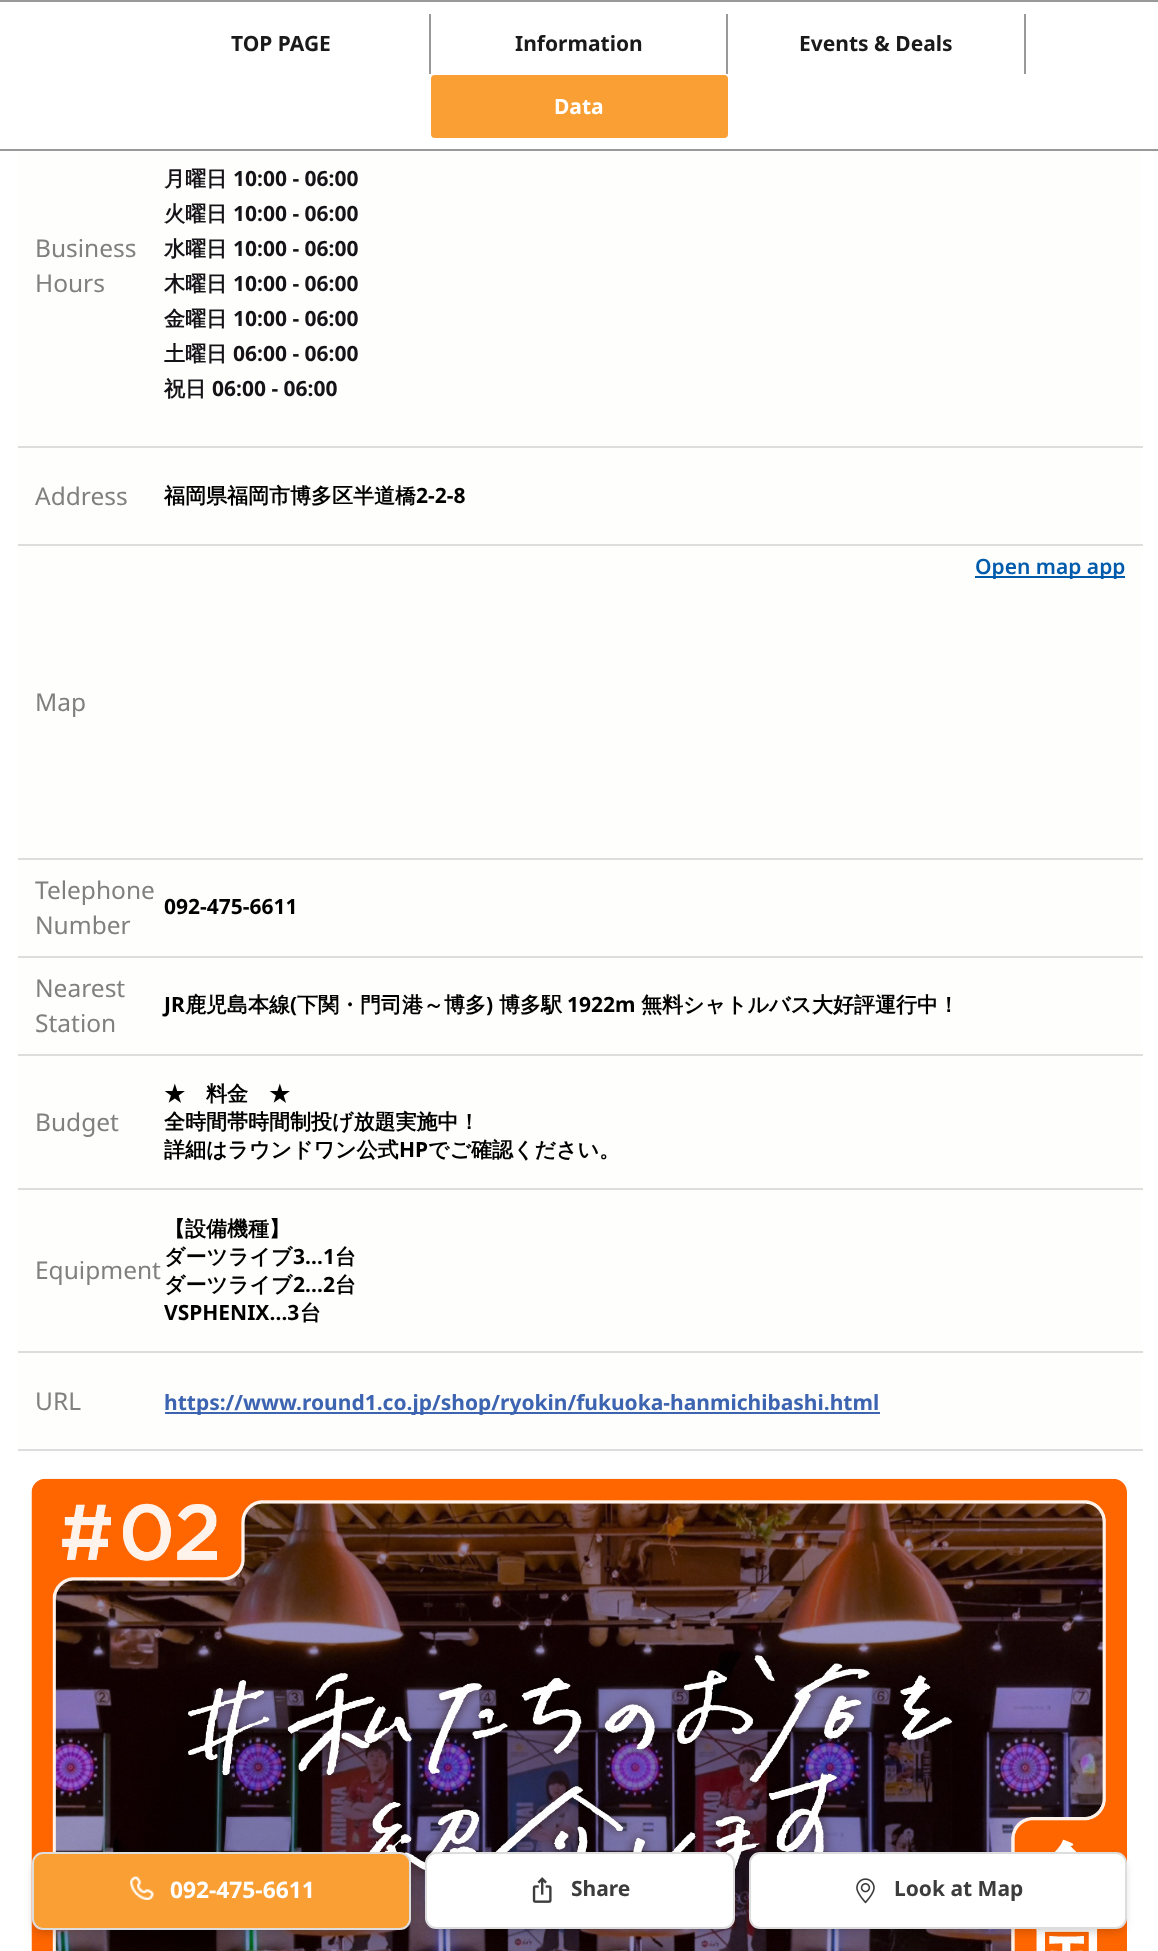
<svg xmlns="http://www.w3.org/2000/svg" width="1158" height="1951">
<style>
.a{font:bold 21px Noto Sans;fill:#1a1a1a}
.b{font:bold 21px Noto Sans;fill:#fff}
.c{font:24.5px Noto Sans;fill:#808080}
.d{font:bold 21px WenQuanYi Zen Hei;fill:#151317}
.e{font:bold 21px Noto Sans;fill:#151317}
.f{font:bold 21px WenQuanYi Zen Hei;fill:#000}
.g{font:bold 21px Noto Sans;fill:#000}
.h{font:600 21px Noto Sans;fill:#005bac}
.i{font:bold 21px Noto Sans;fill:#3c64b1}
.j{font:bold 22.75px Noto Sans;fill:#fff}
.k{font:bold 21px Noto Sans;fill:#3c3c3c}
</style>
<rect width="100%" height="100%" fill="#fff"/>
<path fill="#999" d="M0 0h1158v2H0z"/>
<path fill="#999" d="M0 149h1158v2H0z"/>
<path fill="#999" d="M429 14h2v60H429z"/>
<path fill="#999" d="M726 14h2v60H726z"/>
<path fill="#999" d="M1024 14h2v60H1024z"/>
<rect fill="#f99f33" x="431" y="75" width="297" height="63" rx="4"/>
<path fill="#fefefc" d="M18 151h1123v1298H18z"/>
<path fill="#ddd" d="M18 446h1125v2H18z"/>
<path fill="#ddd" d="M18 544h1125v2H18z"/>
<path fill="#ddd" d="M18 858h1125v2H18z"/>
<path fill="#005bac" d="M975 576h150v2H975z"/>
<path fill="#ddd" d="M18 956h1125v2H18z"/>
<path fill="#ddd" d="M18 1054h1125v2H18z"/>
<path fill="#ddd" d="M18 1188h1125v2H18z"/>
<path fill="#ddd" d="M18 1351h1125v2H18z"/>
<path fill="#ddd" d="M18 1449h1125v2H18z"/>
<path fill="#3c64b1" d="M165 1412h715v2H165z"/>
<image href="1.png" x="31" y="1478" width="1096" height="473"/>
<rect fill="#0000001a" filter="blur(3.5px)" x="35" y="1859" width="373" height="71" rx="7"/>
<rect fill="#0000001a" filter="blur(5px)" x="33" y="1860" width="377" height="76" rx="9"/>
<rect fill="#f99f33" stroke="#ddd" stroke-width="2" x="33" y="1853" width="377" height="76" rx="10"/>
<image href="2.png" x="130" y="1876" width="24" height="24"/>
<rect fill="#0000001a" filter="blur(3.5px)" x="429" y="1859" width="303" height="70" rx="7"/>
<rect fill="#0000001a" filter="blur(5px)" x="427" y="1860" width="306" height="74" rx="9"/>
<rect fill="#fff" stroke="#ddd" stroke-width="2" x="426" y="1853" width="308" height="75" rx="10"/>
<image href="3.png" x="532" y="1877" width="20" height="26"/>
<rect fill="#0000001a" filter="blur(3.5px)" x="753" y="1859" width="371" height="70" rx="7"/>
<rect fill="#0000001a" filter="blur(5px)" x="751" y="1860" width="374" height="74" rx="9"/>
<rect fill="#fff" stroke="#ddd" stroke-width="2" x="750" y="1853" width="376" height="75" rx="10"/>
<image href="4.png" x="856" y="1878" width="19" height="26"/>
<text class="a" x="231" y="51">TOP PAGE</text>
<text class="a" x="515" y="51">Information</text>
<text class="a" x="799" y="51">Events &amp; Deals</text>
<text class="b" x="554" y="114">Data</text>
<text class="c" x="35" y="257">Business</text>
<text class="c" x="35" y="292">Hours</text>
<text class="d" x="164" y="186">月曜日</text>
<text class="e" x="233" y="186">10:00 - 06:00</text>
<text class="d" x="164" y="221">火曜日</text>
<text class="e" x="233" y="221">10:00 - 06:00</text>
<text class="d" x="164" y="256">水曜日</text>
<text class="e" x="233" y="256">10:00 - 06:00</text>
<text class="d" x="164" y="291">木曜日</text>
<text class="e" x="233" y="291">10:00 - 06:00</text>
<text class="d" x="164" y="326">金曜日</text>
<text class="e" x="233" y="326">10:00 - 06:00</text>
<text class="d" x="164" y="361">土曜日</text>
<text class="e" x="233" y="361">06:00 - 06:00</text>
<text class="d" x="164" y="396">祝日</text>
<text class="e" x="212" y="396">06:00 - 06:00</text>
<text class="c" x="35" y="505">Address</text>
<text class="f" x="164" y="503">福岡県福岡市博多区半道橋</text>
<text class="g" x="416" y="503">2-2-8</text>
<text class="h" x="975" y="574">Open map app</text>
<text class="c" x="35" y="711">Map</text>
<text class="c" x="35" y="899">Telephone</text>
<text class="c" x="35" y="934">Number</text>
<text class="g" x="164" y="914">092-475-6611</text>
<text class="c" x="35" y="997">Nearest</text>
<text class="c" x="35" y="1032">Station</text>
<text class="g" x="164" y="1012">JR</text>
<text class="f" x="185" y="1012">鹿児島本線</text>
<text class="g" x="290" y="1012">(</text>
<text class="f" x="297" y="1012">下関・門司港～博多</text>
<text class="g" x="486" y="1012">)</text>
<text class="f" x="499" y="1012">博多駅</text>
<text class="g" x="567" y="1012">1922m</text>
<text class="f" x="641" y="1012">無料シャトルバス大好評運行中！</text>
<text class="c" x="35" y="1131">Budget</text>
<text class="f" x="164" y="1101">★　料金　★</text>
<text class="f" x="164" y="1129">全時間帯時間制投げ放題実施中！</text>
<text class="f" x="164" y="1157">詳細はラウンドワン公式</text>
<text class="g" x="399" y="1157">HP</text>
<text class="f" x="428" y="1157">でご確認ください。</text>
<text class="c" x="35" y="1279">Equipment</text>
<text class="f" x="164" y="1236">【設備機種】</text>
<text class="f" x="164" y="1264">ダーツライブ</text>
<text class="g" x="293" y="1264">3…1</text>
<text class="f" x="335" y="1264">台</text>
<text class="f" x="164" y="1292">ダーツライブ</text>
<text class="g" x="293" y="1292">2…2</text>
<text class="f" x="335" y="1292">台</text>
<text class="g" x="164" y="1320">VSPHENIX…3</text>
<text class="f" x="300" y="1320">台</text>
<text class="c" x="35" y="1410">URL</text>
<text class="i" x="164" y="1410">https://www.round1.co.jp/shop/ryokin/fukuoka-hanmichibashi.html</text>
<text class="j" x="170" y="1898">092-475-6611</text>
<text class="k" x="571" y="1896">Share</text>
<text class="k" x="894" y="1896">Look at Map</text>
</svg>
